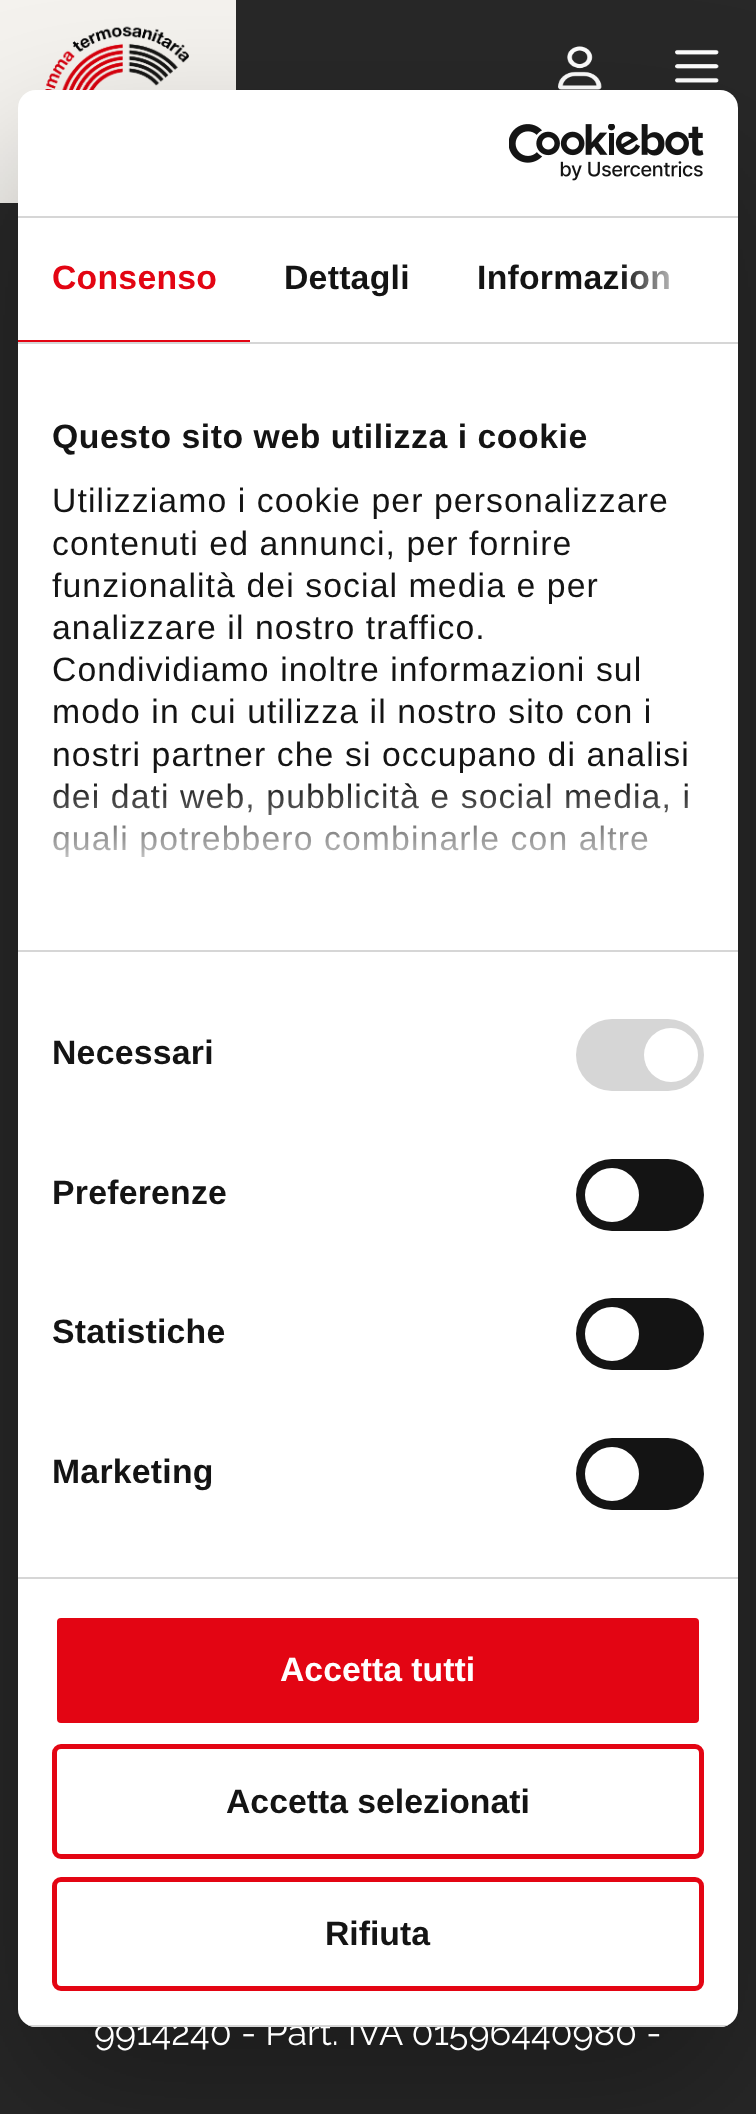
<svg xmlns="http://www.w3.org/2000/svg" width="756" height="2114">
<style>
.a{font:bold 33.75px Liberation Sans;letter-spacing:0.25px;fill:#e30513}
.b{font:bold 33.75px Liberation Sans;letter-spacing:0.25px;fill:#141414}
.c{font:bold 33.75px Liberation Sans;letter-spacing:0.55px;fill:#141414}
.d{font:33.75px Liberation Sans;letter-spacing:1.1px;fill:#141414}
.e{font:bold 33.75px Liberation Sans;fill:#fff}
.f{font:bold 33.75px Liberation Sans;fill:#141414}
.g{font:36px Raleway;fill:#fff}
</style>
<defs>
<linearGradient id="g1" gradientUnits="userSpaceOnUse" x1="738" y1="280" x2="621" y2="280"><stop offset="0" stop-color="#fff"/><stop offset="0.5" stop-color="#fff" stop-opacity="0.8"/><stop offset="1" stop-color="#fff" stop-opacity="0"/></linearGradient>
<linearGradient id="g2" gradientUnits="userSpaceOnUse" x1="363" y1="949" x2="363" y2="780"><stop offset="0" stop-color="#fff"/><stop offset="0.5" stop-color="#fff" stop-opacity="0.8"/><stop offset="1" stop-color="#fff" stop-opacity="0"/></linearGradient>
<clipPath id="clip1"><rect x="18" y="90" width="720" height="1937" rx="18"/></clipPath>
</defs>
<rect width="100%" height="100%" fill="#282828"/>
<path fill="#f4f2ee" d="M0 0h236v203H0z"/>
<image href="1.png" x="45" y="26" width="144" height="64"/>
<image href="2.png" x="558" y="46" width="44" height="44"/>
<image href="3.png" x="675" y="49" width="44" height="34"/>
<rect fill="#0000004d" filter="blur(76.5px)" x="18" y="162" width="720" height="1937" rx="18"/>
<rect fill="#fff" x="18" y="90" width="720" height="1937" rx="18"/>
<path fill="#d6d6d6" d="M18 216h720v2H18z"/>
<image href="4.png" x="509" y="124" width="195" height="57"/>
<path fill="#d6d6d6" d="M18 342h720v2H18z"/>
<path fill="#e30513" d="M18 340h232v2H18z"/>
<path fill="#d6d6d6" d="M18 950h720v2H18z"/>
<path fill="#d6d6d6" d="M18 1577h720v2H18z"/>
<rect fill="#d6d6d6" x="576" y="1019" width="128" height="72" rx="36"/>
<circle fill="#fff" cx="671" cy="1055" r="27"/>
<rect fill="#141414" x="576" y="1159" width="128" height="72" rx="36"/>
<circle fill="#fff" cx="612" cy="1195" r="27"/>
<rect fill="#141414" x="576" y="1298" width="128" height="72" rx="36"/>
<circle fill="#fff" cx="612" cy="1334" r="27"/>
<rect fill="#141414" x="576" y="1438" width="128" height="72" rx="36"/>
<circle fill="#fff" cx="612" cy="1474" r="27"/>
<rect fill="#e30513" stroke="#fff" stroke-width="5" x="54.5" y="1615.5" width="647" height="110" rx="6.5"/>
<rect fill="none" stroke="#e30513" stroke-width="5" x="54.5" y="1746.5" width="647" height="110" rx="6.5"/>
<rect fill="none" stroke="#e30513" stroke-width="5" x="54.5" y="1879.5" width="647" height="109" rx="6.5"/>
<text class="a" x="52" y="289">Consenso</text>
<text class="b" x="284" y="289">Dettagli</text>
<text class="b" x="477" y="289">Informazion</text>
<path fill="url(#g1)" d="M623 264h46v26H623z"/>
<text class="c" x="52" y="448">Questo sito web utilizza i cookie</text>
<text class="d" x="52" y="512">Utilizziamo i cookie per personalizzare</text>
<text class="d" x="52" y="555">contenuti ed annunci, per fornire</text>
<text class="d" x="52" y="597">funzionalità dei social media e per</text>
<text class="d" x="52" y="639">analizzare il nostro traffico.</text>
<text class="d" x="52" y="681">Condividiamo inoltre informazioni sul</text>
<text class="d" x="52" y="723">modo in cui utilizza il nostro sito con i</text>
<text class="d" x="52" y="766">nostri partner che si occupano di analisi</text>
<text class="d" x="52" y="808">dei dati web, pubblicità e social media, i</text>
<text class="d" x="52" y="850">quali potrebbero combinarle con altre</text>
<path fill="url(#g2)" d="M53 783h636v74H53z"/>
<text class="b" x="52" y="1064">Necessari</text>
<text class="b" x="52" y="1204">Preferenze</text>
<text class="b" x="52" y="1343">Statistiche</text>
<text class="b" x="52" y="1483">Marketing</text>
<text class="e" x="280" y="1681">Accetta tutti</text>
<text class="f" x="226" y="1813">Accetta selezionati</text>
<text class="f" x="325" y="1945">Rifiuta</text>
<text class="g" x="94" y="2045">9914240 - Part. IVA 01596440980 -</text>
<g clip-path="url(#clip1)">
<path fill="#d6d6d6" d="M28 2025h700v2H28z"/>
</g>
</svg>
